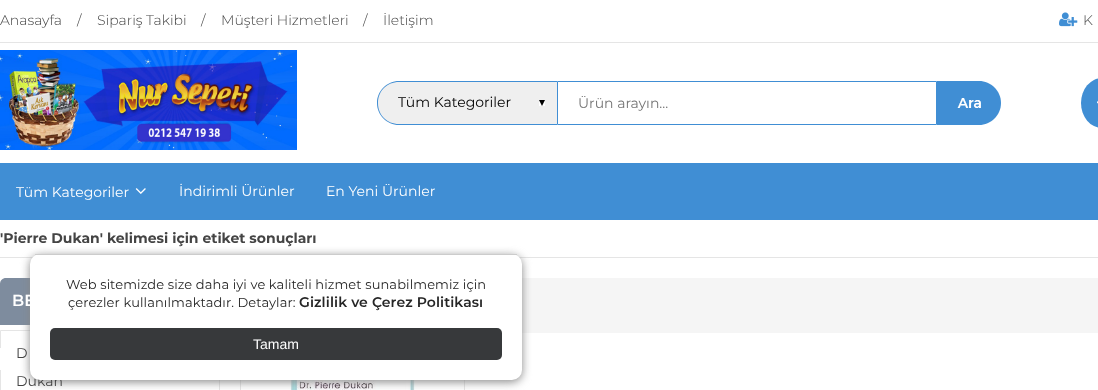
<svg xmlns="http://www.w3.org/2000/svg" width="1098" height="390">
<style>
.a{font:300 14px Montserrat;fill:#444}
.b{font:14px Montserrat;fill:#000}
.c{font:14px Montserrat;fill:#757575}
.d{font:14px Montserrat;fill:#fff}
.e{font:bold 14px Montserrat;fill:#444}
.f{font:600 16px Montserrat;fill:#fff}
.g{font:14px Montserrat;fill:#444}
.h{font:14px Liberation Sans;fill:#fff}
.i{font:600 14px Montserrat;letter-spacing:0.1px;fill:#262626}
.j{font:13px Montserrat;letter-spacing:0.1px;fill:#262626}
</style>
<rect width="100%" height="100%" fill="#fff"/>
<path fill="#e5e5e5" d="M0 42h1098v1H0z"/>
<image href="1.png" x="1059" y="12" width="19" height="15"/>
<image href="2.png" x="0" y="50" width="297" height="100"/>
<path fill="#efefef" d="M399 81h158v44h-158c-12 0-22-10-22-22c0-12 10-22 22-22z"/>
<image href="3.png" x="539" y="100" width="6" height="6"/>
<path fill="#408ed4" fill-rule="evenodd" d="M399 81h158v44h-158c-12 0-22-10-22-22c0-12 10-22 22-22zm0 1h158v42h-158c-12 0-21-9-21-21c0-12 9-21 21-21z"/>
<path fill="none" stroke="#408ed4" d="M557.5 81.5h379v43H557.5z"/>
<path fill="#408ed4" d="M937 81h42c12 0 22 10 22 22c0 12-10 22-22 22h-42z"/>
<image href="4.png" x="957" y="98" width="24" height="10"/>
<rect fill="#408ed4" x="1081" y="78" width="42" height="50" rx="25"/>
<image href="5.png" x="1097" y="101" width="1" height="3"/>
<path fill="#408ed4" d="M0 163h1098v57H0z"/>
<image href="6.png" x="135" y="188" width="11" height="6"/>
<path fill="#e5e5e5" d="M0 257h1098v1H0z"/>
<path fill="#7e8c9e" d="M6 278h208c3.5 0 6 2.5 6 6v41h-220v-41c0-3.5 2.5-6 6-6z"/>
<path fill="none" stroke="#e5e5e5" d="M0.5 330.5h219v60H0.5z"/>
<path fill="#f5f5f5" d="M522 278h576v55H522z"/>
<path fill="none" stroke="#e5e5e5" d="M240.5 353.5h224v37H240.5z"/>
<image href="7.png" x="290" y="380" width="125" height="10"/>
<rect fill="#888" filter="blur(5px)" x="30" y="256" width="492" height="126" rx="10"/>
<path fill="#fff" d="M0 348h1v22H0z"/>
<text class="a" x="0" y="25">Anasayfa</text>
<text class="a" x="77" y="25">/</text>
<text class="a" x="97" y="25">Sipariş Takibi</text>
<text class="a" x="201" y="25">/</text>
<text class="a" x="221" y="25">Müşteri Hizmetleri</text>
<text class="a" x="363" y="25">/</text>
<text class="a" x="383" y="25">İletişim</text>
<text class="a" x="1083" y="25">K</text>
<text class="b" x="398" y="107">Tüm Kategoriler</text>
<text class="c" x="578" y="108">Ürün arayın...</text>
<text class="d" x="16" y="197">Tüm Kategoriler</text>
<text class="d" x="179" y="196">İndirimli Ürünler</text>
<text class="d" x="326" y="196">En Yeni Ürünler</text>
<text class="e" x="0" y="243">'Pierre Dukan' kelimesi için etiket sonuçları</text>
<text class="f" x="12" y="306">BE</text>
<text class="g" x="16" y="358">D</text>
<text class="g" x="16" y="386">Dukan</text>
<rect fill="#fff" x="30" y="254" width="492" height="126" rx="10"/>
<rect fill="#37393b" x="50" y="328" width="452" height="32" rx="5"/>
<text class="h" x="253" y="349">Tamam</text>
<text class="i" x="299" y="307">Gizlilik ve Çerez Politikası</text>
<text class="j" x="68" y="307">çerezler kullanılmaktadır. Detaylar:</text>
<text class="j" x="66" y="289">Web sitemizde size daha iyi ve kaliteli hizmet sunabilmemiz için</text>
<path fill="#ccc" d="M35 254h482v1H35z"/>
</svg>
